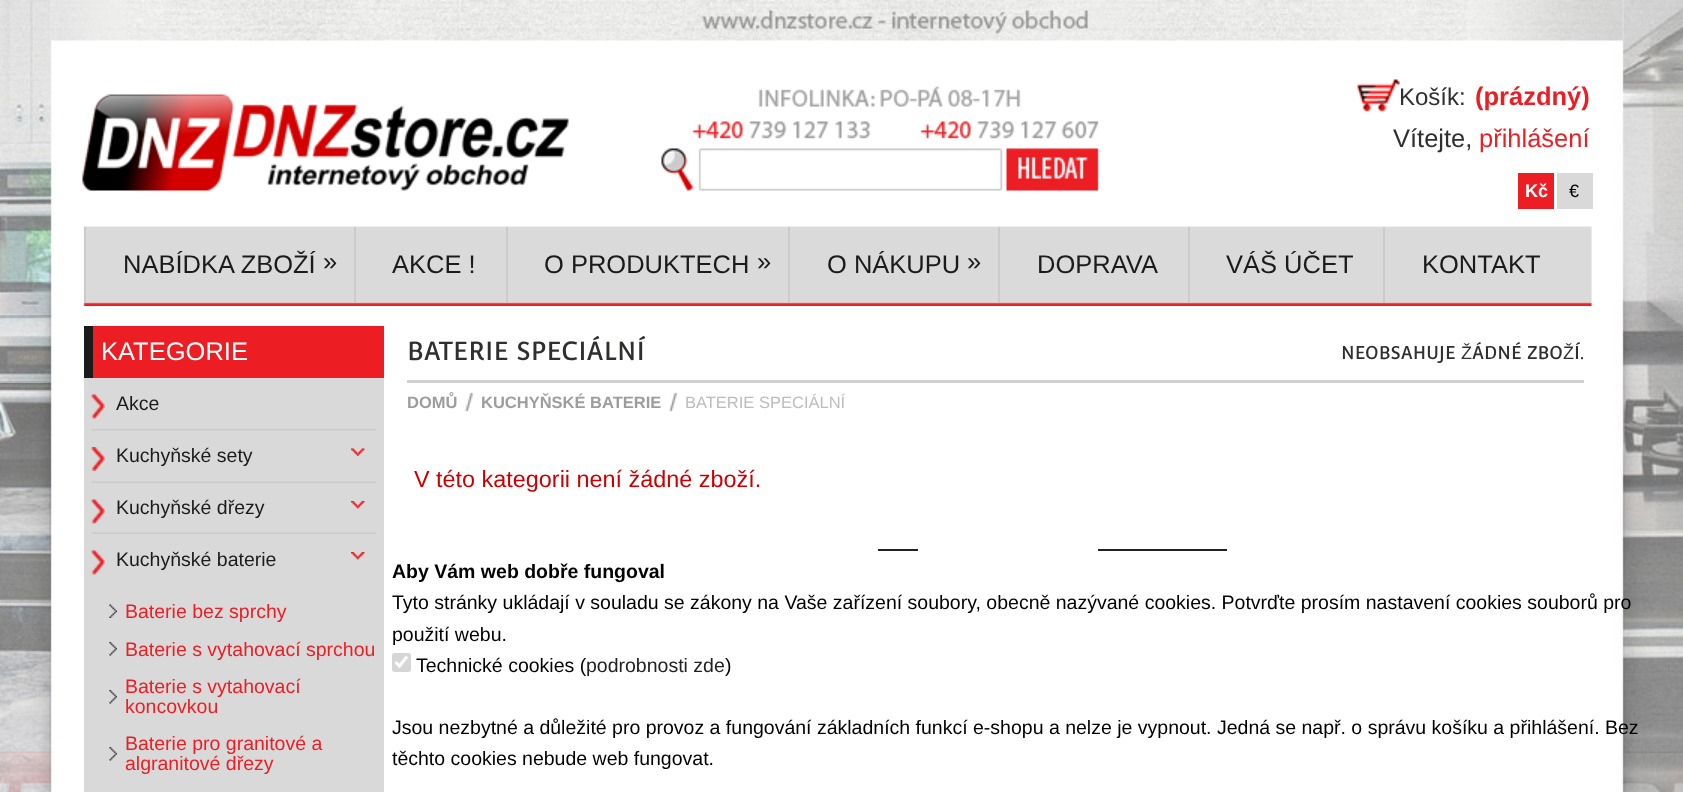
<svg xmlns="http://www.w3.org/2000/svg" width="1683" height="792">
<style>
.a{font:24px Liberation Sans;fill:#302f2d}
.b{font:bold 25.5px Liberation Sans;fill:#ec1e24}
.c{font:25.5px Liberation Sans;fill:#302f2d}
.d{font:25.5px Liberation Sans;fill:#ec1e24}
.e{font:bold 18px Liberation Sans;fill:#fff}
.f{font:18px Liberation Sans;fill:#000}
.g{font:25.5px Liberation Sans;fill:#1b1b1b}
.h{font:25.5px Liberation Sans;fill:#fff}
.i{font:19.5px Liberation Sans;fill:#1b1b1b}
.j{font:19.5px Liberation Sans;fill:#ec1e24}
.k{font:25.5px Convergence;fill:#302f2d}
.l{font:18px Convergence;fill:#302f2d}
.m{font:18px Liberation Sans;fill:#302f2d}
.n{font:bold 16.5px Liberation Sans;fill:#9d9d9d}
.o{font:16.5px Liberation Sans;fill:#bcbcbc}
.p{font:23.4px Liberation Sans;fill:#c00}
.q{font:bold 19.5px Liberation Sans;fill:#000}
.r{font:19.5px Liberation Sans;fill:#000}
.s{font:19.5px Liberation Sans;fill:#212121}
</style>
<rect width="100%" height="100%" fill="#fff"/>
<image href="1.png" x="0" y="0" width="1683" height="792"/>
<image href="2.png" x="51" y="0" width="1572" height="306"/>
<image href="3.png" x="1357" y="79" width="43" height="33"/>
<path fill="#ec1e24" d="M1518 173h36v36H1518z"/>
<path fill="#d9d9d9" d="M1557 173h36v36H1557z"/>
<path fill="#cbcbcb" d="M84 227h2v76H84z"/>
<path fill="#cbcbcb" d="M354 227h2v76H354z"/>
<path fill="#cbcbcb" d="M506 227h2v76H506z"/>
<path fill="#cbcbcb" d="M788 227h2v76H788z"/>
<path fill="#cbcbcb" d="M998 227h2v76H998z"/>
<path fill="#cbcbcb" d="M1188 227h2v76H1188z"/>
<path fill="#cbcbcb" d="M1383 227h2v76H1383z"/>
<path fill="#d9d9d9" d="M84 378h300v414H84z"/>
<path fill="#ec1e24" d="M93 326h291v52H93z"/>
<path fill="#1b1b1b" d="M84 326h9v52H84z"/>
<image href="4.png" x="91" y="429" width="286" height="2"/>
<image href="5.png" x="91" y="394" width="14" height="25"/>
<image href="6.png" x="91" y="481" width="286" height="2"/>
<image href="7.png" x="91" y="447" width="14" height="24"/>
<image href="8.png" x="351" y="448" width="14" height="8"/>
<image href="6.png" x="91" y="532" width="286" height="2"/>
<image href="5.png" x="91" y="499" width="14" height="25"/>
<image href="9.png" x="351" y="501" width="14" height="8"/>
<image href="5.png" x="91" y="550" width="14" height="25"/>
<image href="9.png" x="351" y="552" width="14" height="8"/>
<image href="10.png" x="109" y="604" width="8" height="14"/>
<image href="11.png" x="109" y="642" width="8" height="14"/>
<image href="11.png" x="109" y="690" width="8" height="14"/>
<image href="11.png" x="109" y="747" width="8" height="14"/>
<path fill="#d0d0d0" d="M407 380h1177v3H407z"/>
<image href="12.png" x="464" y="392" width="9" height="20"/>
<image href="13.png" x="668" y="392" width="9" height="20"/>
<path fill="#212121" d="M878 549h40v2H878z"/>
<path fill="#212121" d="M1098 549h129v2H1098z"/>
<rect fill="#d6d6d6" x="392" y="653" width="19" height="19" rx="3"/>
<path fill="none" stroke="#fff" stroke-width="3.1" d="M395.5 662l4 4l7.5-9.5"/>
<text class="a" x="1399" y="105">Košík:</text>
<text class="b" x="1475" y="105">(prázdný)</text>
<text class="c" x="1393" y="147">Vítejte,</text>
<text class="d" x="1479" y="147">přihlášení</text>
<text class="e" x="1525" y="197">Kč</text>
<text class="f" x="1569" y="197">€</text>
<text class="g" x="123" y="273">NABÍDKA ZBOŽÍ</text>
<text class="g" x="323" y="270">»</text>
<text class="g" x="392" y="273">AKCE !</text>
<text class="g" x="544" y="273">O PRODUKTECH</text>
<text class="g" x="757" y="270">»</text>
<text class="g" x="827" y="273">O NÁKUPU</text>
<text class="g" x="967" y="270">»</text>
<text class="g" x="1037" y="273">DOPRAVA</text>
<text class="g" x="1226" y="273">VÁŠ ÚČET</text>
<text class="g" x="1422" y="273">KONTAKT</text>
<text class="h" x="101" y="360">KATEGORIE</text>
<text class="i" x="116" y="410">Akce</text>
<text class="i" x="116" y="462">Kuchyňské sety</text>
<text class="i" x="116" y="514">Kuchyňské dřezy</text>
<text class="i" x="116" y="566">Kuchyňské baterie</text>
<text class="j" x="125" y="618">Baterie bez sprchy</text>
<text class="j" x="125" y="656">Baterie s vytahovací sprchou</text>
<text class="j" x="125" y="693">Baterie s vytahovací</text>
<text class="j" x="125" y="713">koncovkou</text>
<text class="j" x="125" y="750">Baterie pro granitové a</text>
<text class="j" x="125" y="770">algranitové dřezy</text>
<text class="k" x="407" y="360">BATERIE SPECIÁLNÍ</text>
<text class="l" x="1341" y="359">NEOBSAHUJE</text>
<text class="m" x="1461" y="359">Ž</text>
<text class="l" x="1472" y="359">ÁDNÉ ZBO</text>
<text class="m" x="1563" y="359">Ž</text>
<text class="l" x="1574" y="359">Í.</text>
<text class="n" x="407" y="408">DOMŮ</text>
<text class="n" x="481" y="408">KUCHYŇSKÉ BATERIE</text>
<text class="o" x="685" y="408">BATERIE SPECIÁLNÍ</text>
<text class="p" x="414" y="487">V této kategorii není žádné zboží.</text>
<text class="q" x="392" y="578">Aby Vám web dobře fungoval</text>
<text class="r" x="392" y="609">Tyto stránky ukládají v souladu se zákony na Vaše zařízení soubory, obecně nazývané cookies. Potvrďte prosím nastavení cookies souborů pro</text>
<text class="r" x="392" y="641">použití webu.</text>
<text class="r" x="416" y="672">Technické cookies (</text>
<text class="s" x="586" y="672">podrobnosti zde</text>
<text class="r" x="725" y="672">)</text>
<text class="r" x="392" y="734">Jsou nezbytné a důležité pro provoz a fungování základních funkcí e-shopu a nelze je vypnout. Jedná se např. o správu košíku a přihlášení. Bez</text>
<text class="r" x="392" y="765">těchto cookies nebude web fungovat.</text>
</svg>
